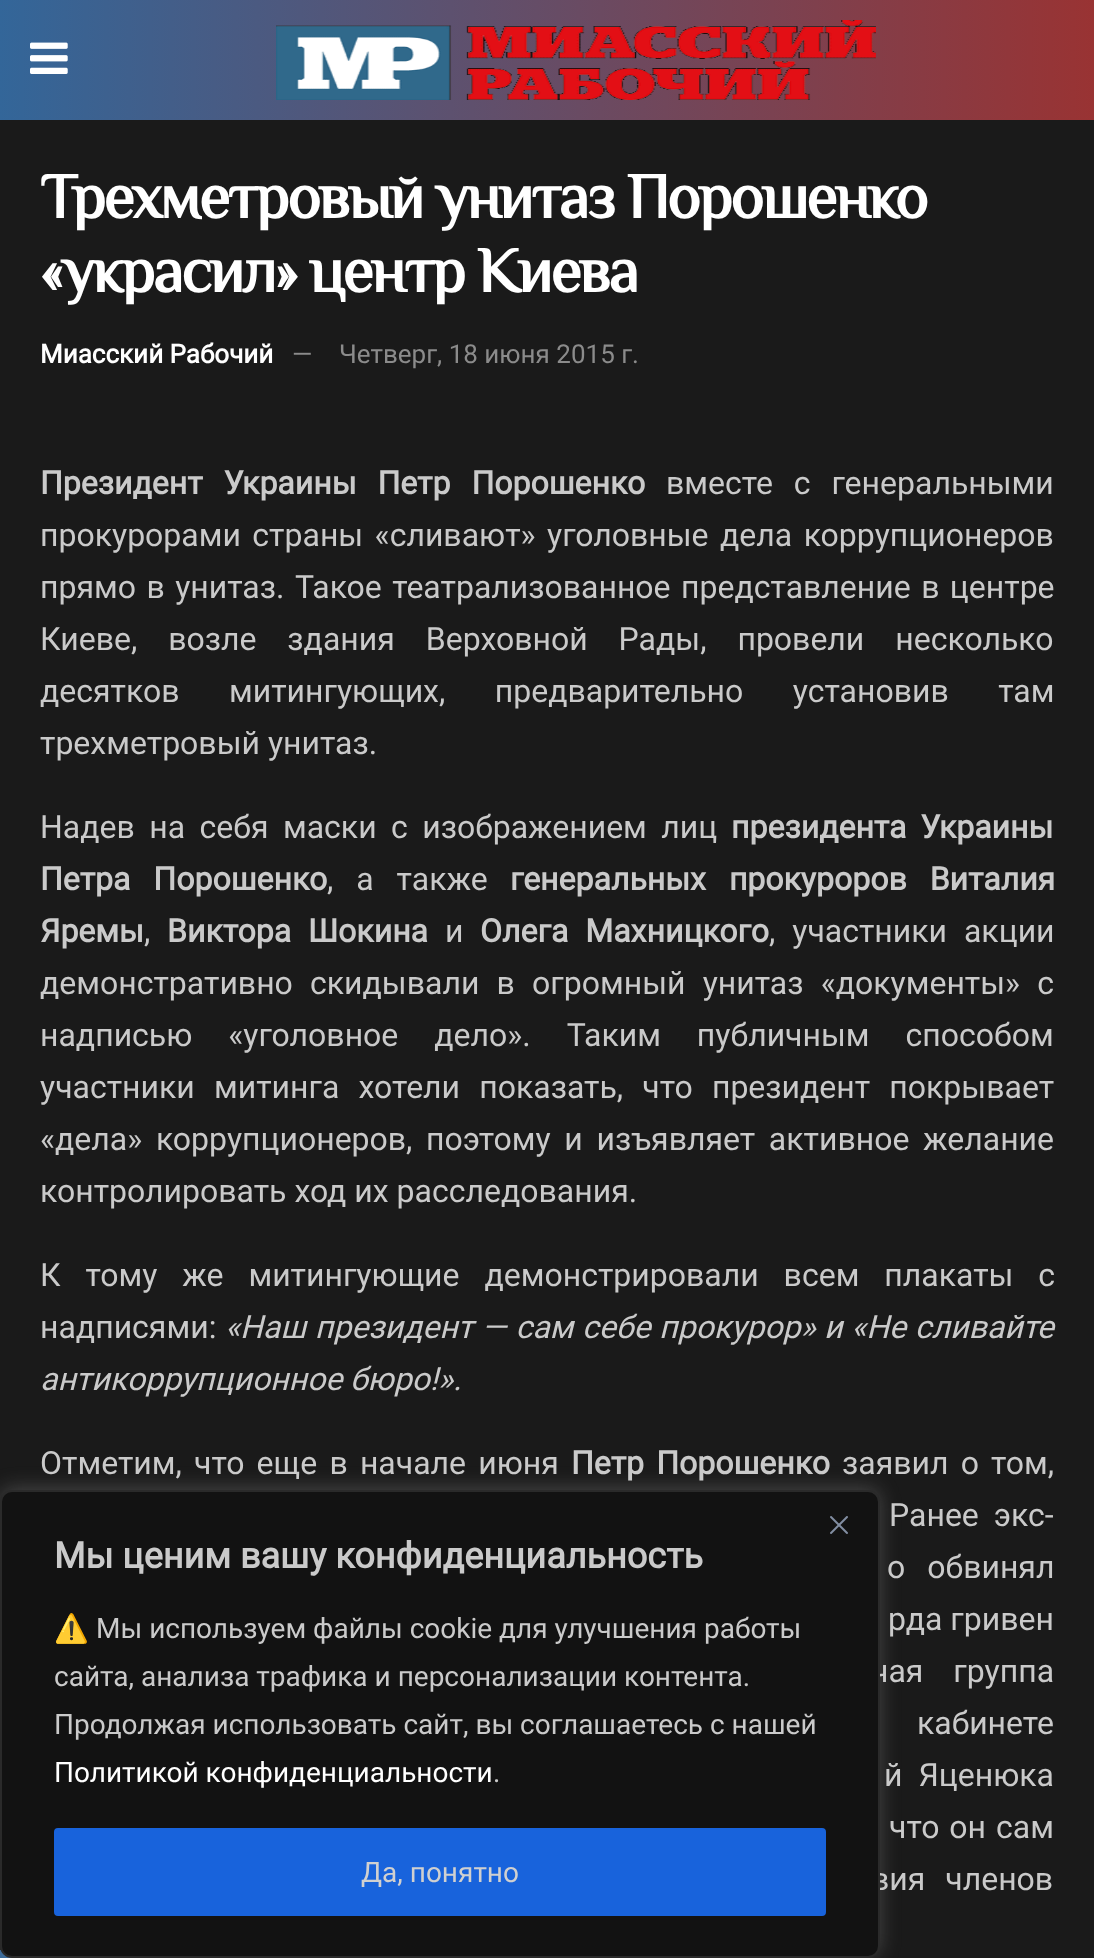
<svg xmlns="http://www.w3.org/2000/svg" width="1094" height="1958">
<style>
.a{font:bold 64px Philosopher;letter-spacing:-2.55px;fill:#fff}
.b{font:bold 26px Roboto;fill:#fff}
.c{font:26px Roboto;fill:#8b8b8b}
.d{font:bold 32px Roboto;fill:#cacaca}
.e{font:32px Roboto;fill:#cacaca}
.f{font:italic 32px Roboto;fill:#cacaca}
.g{font:bold 36px Roboto;fill:#cacaca}
.h{font:28px Noto Color Emoji;fill:#cacaca}
.i{font:28px Roboto;fill:#cacaca}
.j{font:28px Roboto;fill:#fff}
.k{font:28px Roboto;fill:#d0d0d0}
</style>
<defs>
<linearGradient id="g1" gradientUnits="userSpaceOnUse" x1="0" y1="60" x2="1094" y2="60"><stop offset="0" stop-color="#369"/><stop offset="1" stop-color="#933"/></linearGradient>
</defs>
<rect width="100%" height="100%" fill="#1a1a1a"/>
<path fill="url(#g1)" d="M0 0h1094v120H0z"/>
<image href="1.png" x="30" y="42" width="38" height="32"/>
<image href="2.png" x="276" y="20" width="600" height="80"/>
<path fill="#369" d="M0 1950h12v8H0z"/>
<rect fill="#acabab4d" filter="blur(10px)" y="1488" width="880" height="468" rx="12"/>
<text class="a" x="40" y="218">Трехметровый унитаз Порошенко</text>
<text class="a" x="40" y="292">«украсил» центр Киева</text>
<text class="b" x="40" y="363">Миасский Рабочий</text>
<text class="c" x="292" y="363">—</text>
<text class="c" x="339" y="363">Четверг, 18 июня 2015 г.</text>
<text class="d" x="40" y="494" word-spacing="13">Президент Украины Петр Порошенко</text>
<text class="e" x="666" y="494" word-spacing="13">вместе с генеральными</text>
<text class="e" x="40" y="546" word-spacing="3.5">прокурорами страны «сливают» уголовные дела коррупционеров</text>
<text class="e" x="40" y="598" word-spacing="2.5">прямо в унитаз. Такое театрализованное представление в центре</text>
<text class="e" x="40" y="650" word-spacing="23">Киеве, возле здания Верховной Рады, провели несколько</text>
<text class="e" x="40" y="702" word-spacing="41.5">десятков митингующих, предварительно установив там</text>
<text class="e" x="40" y="754">трехметровый унитаз.</text>
<text class="e" x="40" y="838" word-spacing="6.5">Надев на себя маски с изображением лиц</text>
<text class="d" x="731" y="838" word-spacing="6">президента Украины</text>
<text class="d" x="40" y="890" word-spacing="15">Петра Порошенко</text>
<text class="e" x="327" y="890" word-spacing="15">, а также</text>
<text class="d" x="510" y="890" word-spacing="15">генеральных прокуроров Виталия</text>
<text class="d" x="40" y="942">Яремы</text>
<text class="e" x="144" y="942">,</text>
<text class="d" x="167" y="942" word-spacing="9">Виктора Шокина</text>
<text class="e" x="445" y="942">и</text>
<text class="d" x="480" y="942" word-spacing="9">Олега Махницкого</text>
<text class="e" x="769" y="942" word-spacing="9">, участники акции</text>
<text class="e" x="40" y="994" word-spacing="9.25">демонстративно скидывали в огромный унитаз «документы» с</text>
<text class="e" x="40" y="1046" word-spacing="28">надписью «уголовное дело». Таким публичным способом</text>
<text class="e" x="40" y="1098" word-spacing="11.25">участники митинга хотели показать, что президент покрывает</text>
<text class="e" x="40" y="1150" word-spacing="5.75">«дела» коррупционеров, поэтому и изъявляет активное желание</text>
<text class="e" x="40" y="1202">контролировать ход их расследования.</text>
<text class="e" x="40" y="1286" word-spacing="17">К тому же митингующие демонстрировали всем плакаты с</text>
<text class="e" x="40" y="1338">надписями:</text>
<text class="f" x="225" y="1338" word-spacing="0.75">«Наш президент — сам себе прокурор» и «Не сливайте</text>
<text class="f" x="40" y="1390">антикоррупционное бюро!».</text>
<text class="e" x="40" y="1474" word-spacing="4.25">Отметим, что еще в начале июня</text>
<text class="d" x="571" y="1474" word-spacing="4.25">Петр Порошенко</text>
<text class="e" x="842" y="1474" word-spacing="4.25">заявил о том,</text>
<text class="e" x="889" y="1526" word-spacing="7">Ранее экс-</text>
<text class="e" x="887" y="1578" word-spacing="14">о обвинял</text>
<text class="e" x="888" y="1630">рда гривен</text>
<text class="e" x="871" y="1682" word-spacing="22">чая группа</text>
<text class="e" x="917" y="1734" word-spacing="22">кабинете</text>
<text class="e" x="884" y="1786" word-spacing="8">й Яценюка</text>
<text class="e" x="889" y="1838" word-spacing="2">что он сам</text>
<text class="e" x="871" y="1890" word-spacing="12">вия членов</text>
<rect fill="#121212" stroke="#2a2a2a" stroke-width="2" x="1" y="1491" width="878" height="466" rx="11"/>
<image href="3.png" x="830" y="1516" width="18" height="18"/>
<text class="g" x="54" y="1568">Мы ценим вашу конфиденциальность</text>
<text class="h" x="54" y="1638">⚠️</text>
<text class="i" x="96" y="1638">Мы используем файлы cookie для улучшения работы</text>
<text class="i" x="54" y="1686">сайта, анализа трафика и персонализации контента.</text>
<text class="i" x="54" y="1734">Продолжая использовать сайт, вы соглашаетесь с нашей</text>
<text class="j" x="54" y="1782">Политикой конфиденциальности</text>
<text class="i" x="493" y="1782">.</text>
<rect fill="#1863dc" stroke="#1863dc" stroke-width="4" x="56" y="1830" width="768" height="84" rx="2"/>
<text class="k" x="361" y="1882">Да, понятно</text>
</svg>
